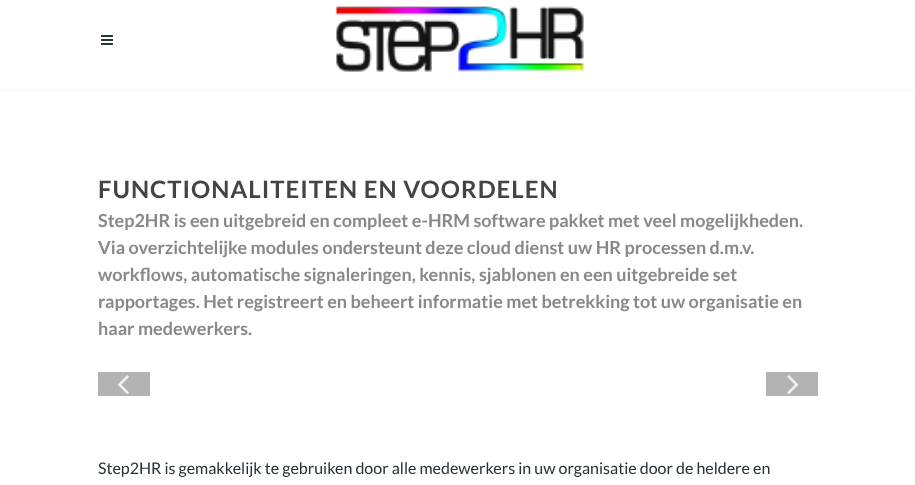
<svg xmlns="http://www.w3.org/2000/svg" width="915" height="485">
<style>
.a{font:bold 24px Lato;letter-spacing:1px;fill:#444}
.b{font:bold 18px Lato;fill:#888}
.c{font:16px Lato;fill:#253039}
</style>
<rect width="100%" height="100%" fill="#fff"/>
<path fill="#f5f5f5" d="M0 90h915v1H0z"/>
<image href="1.png" x="101" y="35" width="12" height="10"/>
<image href="2.png" x="336" y="6" width="248" height="66"/>
<path fill="#b3b3b3" d="M98 372h52v24H98z"/>
<image href="3.png" x="118" y="375" width="11" height="19"/>
<path fill="#b3b3b3" d="M766 372h52v24H766z"/>
<image href="4.png" x="787" y="375" width="12" height="19"/>
<text class="a" x="98" y="198">FUNCTIONALITEITEN EN VOORDELEN</text>
<text class="b" x="98" y="227">Step2HR is een uitgebreid en compleet e-HRM software pakket met veel mogelijkheden.</text>
<text class="b" x="98" y="254">Via overzichtelijke modules ondersteunt deze cloud dienst uw HR processen d.m.v.</text>
<text class="b" x="98" y="281">workflows, automatische signaleringen, kennis, sjablonen en een uitgebreide set</text>
<text class="b" x="98" y="308">rapportages. Het registreert en beheert informatie met betrekking tot uw organisatie en</text>
<text class="b" x="98" y="335">haar medewerkers.</text>
<text class="c" x="98" y="474">Step2HR is gemakkelijk te gebruiken door alle medewerkers in uw organisatie door de heldere en</text>
</svg>
